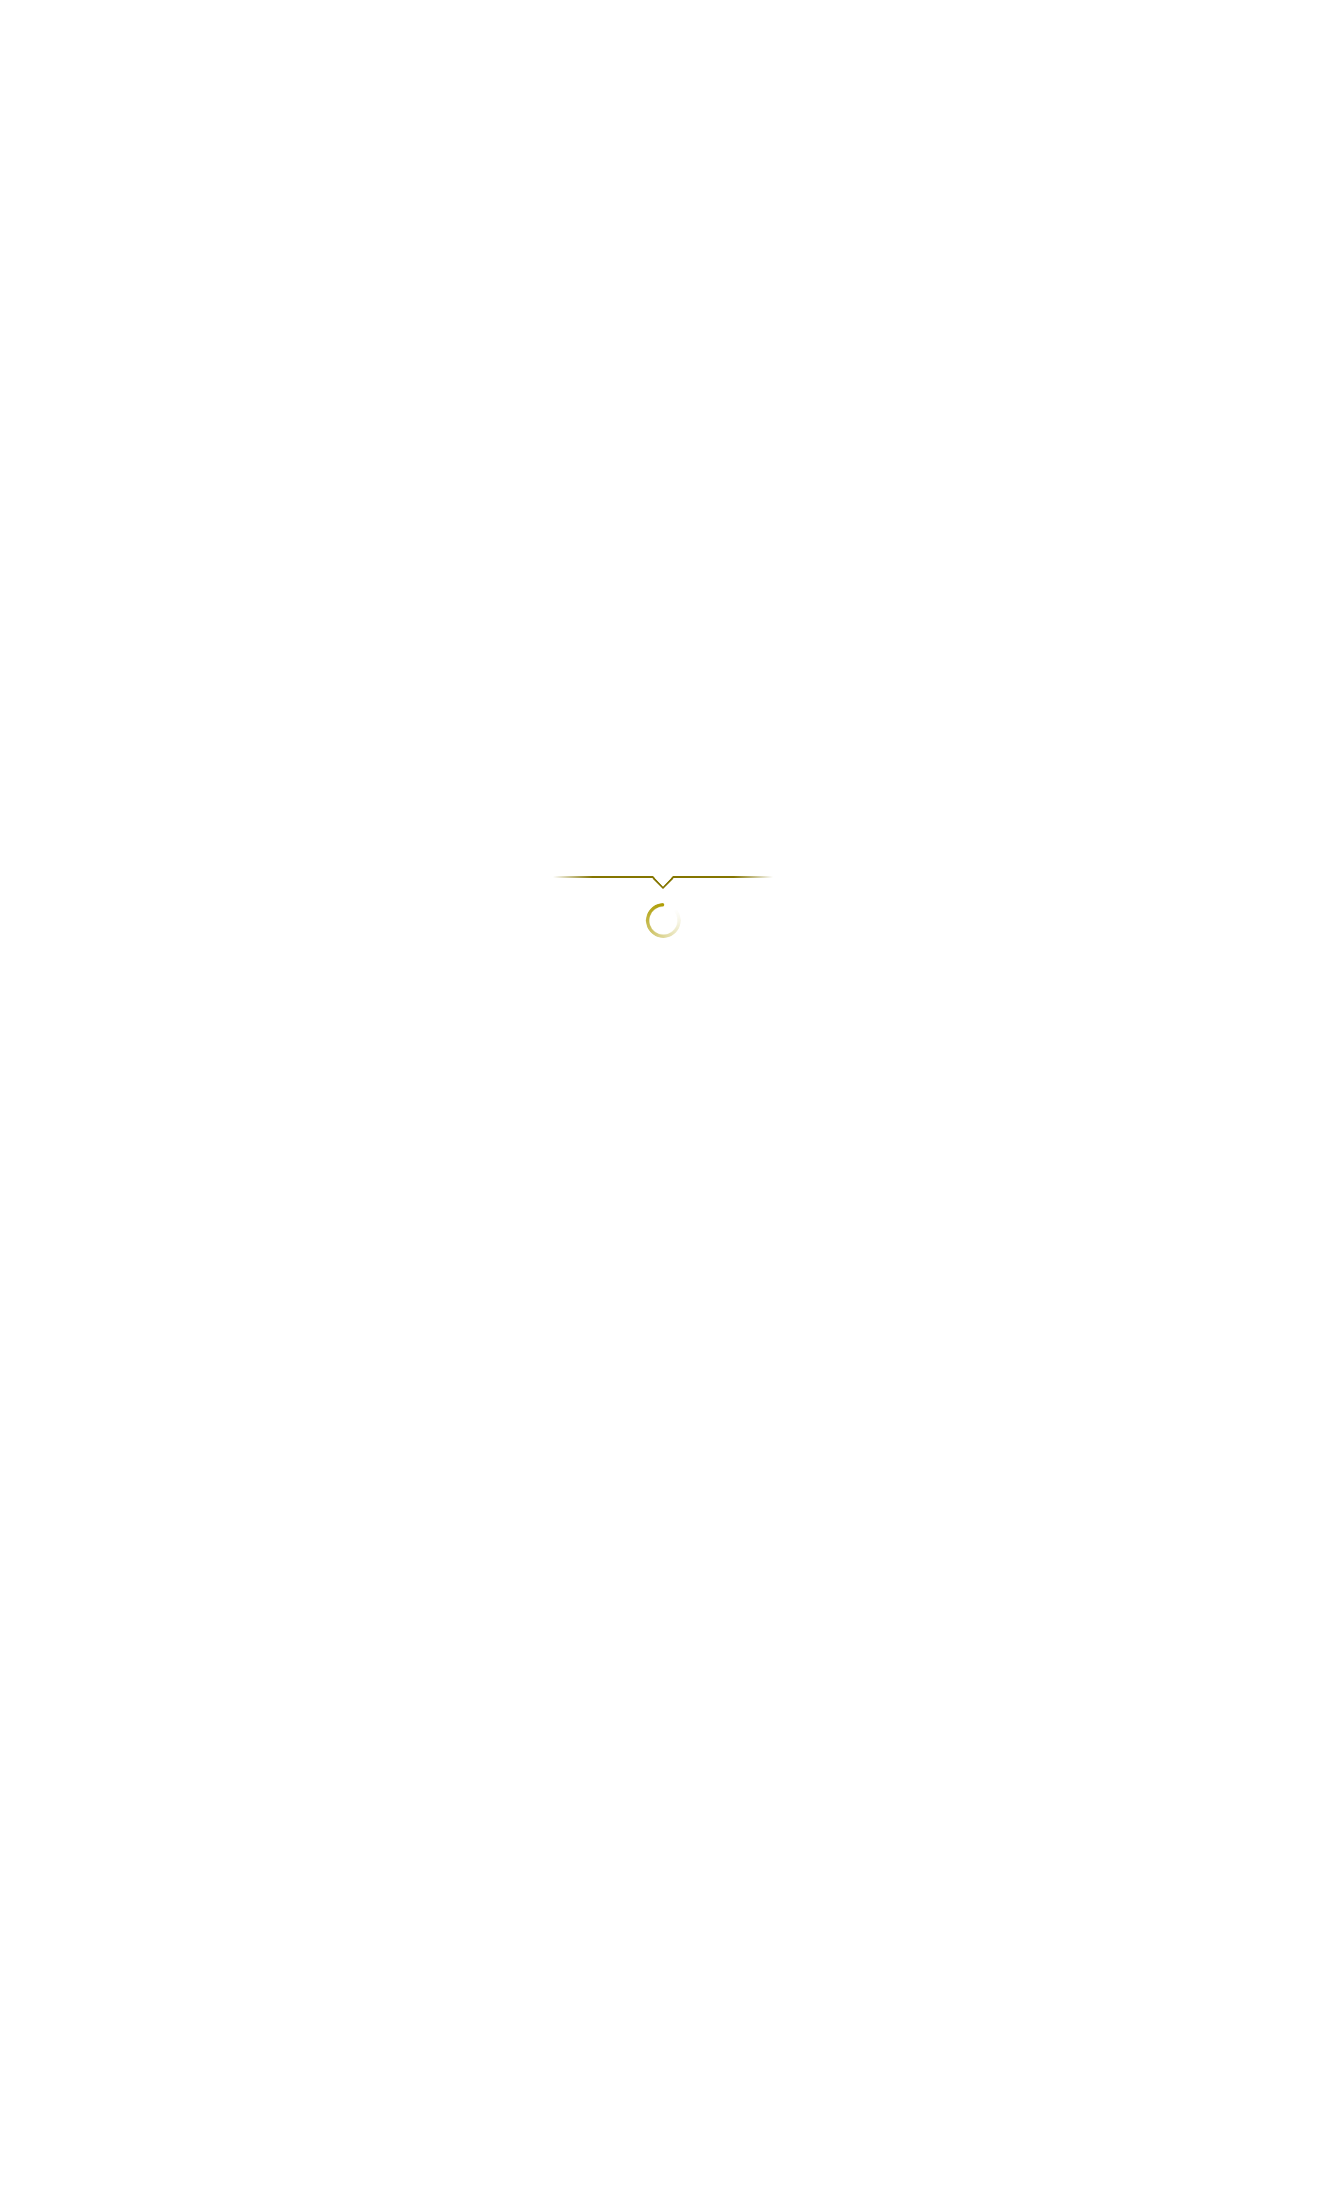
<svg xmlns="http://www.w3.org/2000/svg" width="1326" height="2203">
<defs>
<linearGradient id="g1" gradientUnits="userSpaceOnUse" x1="553" y1="877" x2="773" y2="877"><stop offset="0" stop-color="#fff"/><stop offset="0.18" stop-color="#847500"/><stop offset="0.82" stop-color="#847500"/><stop offset="1" stop-color="#fff"/></linearGradient>
</defs>
<rect width="100%" height="100%" fill="#fff"/>
<path fill="url(#g1)" d="M553 876h220v2H553z"/>
<path fill="#847500" d="M654 877l-1.5 1.5l10.5 10.5l10.5-10.5l-1.5-1.5l-9 9.5z"/>
<path fill="#fff" d="M663 865l10.5 10.5l-10.5 11l-10.5-11z"/>
<image href="1.png" x="645" y="903" width="36" height="35"/>
</svg>
